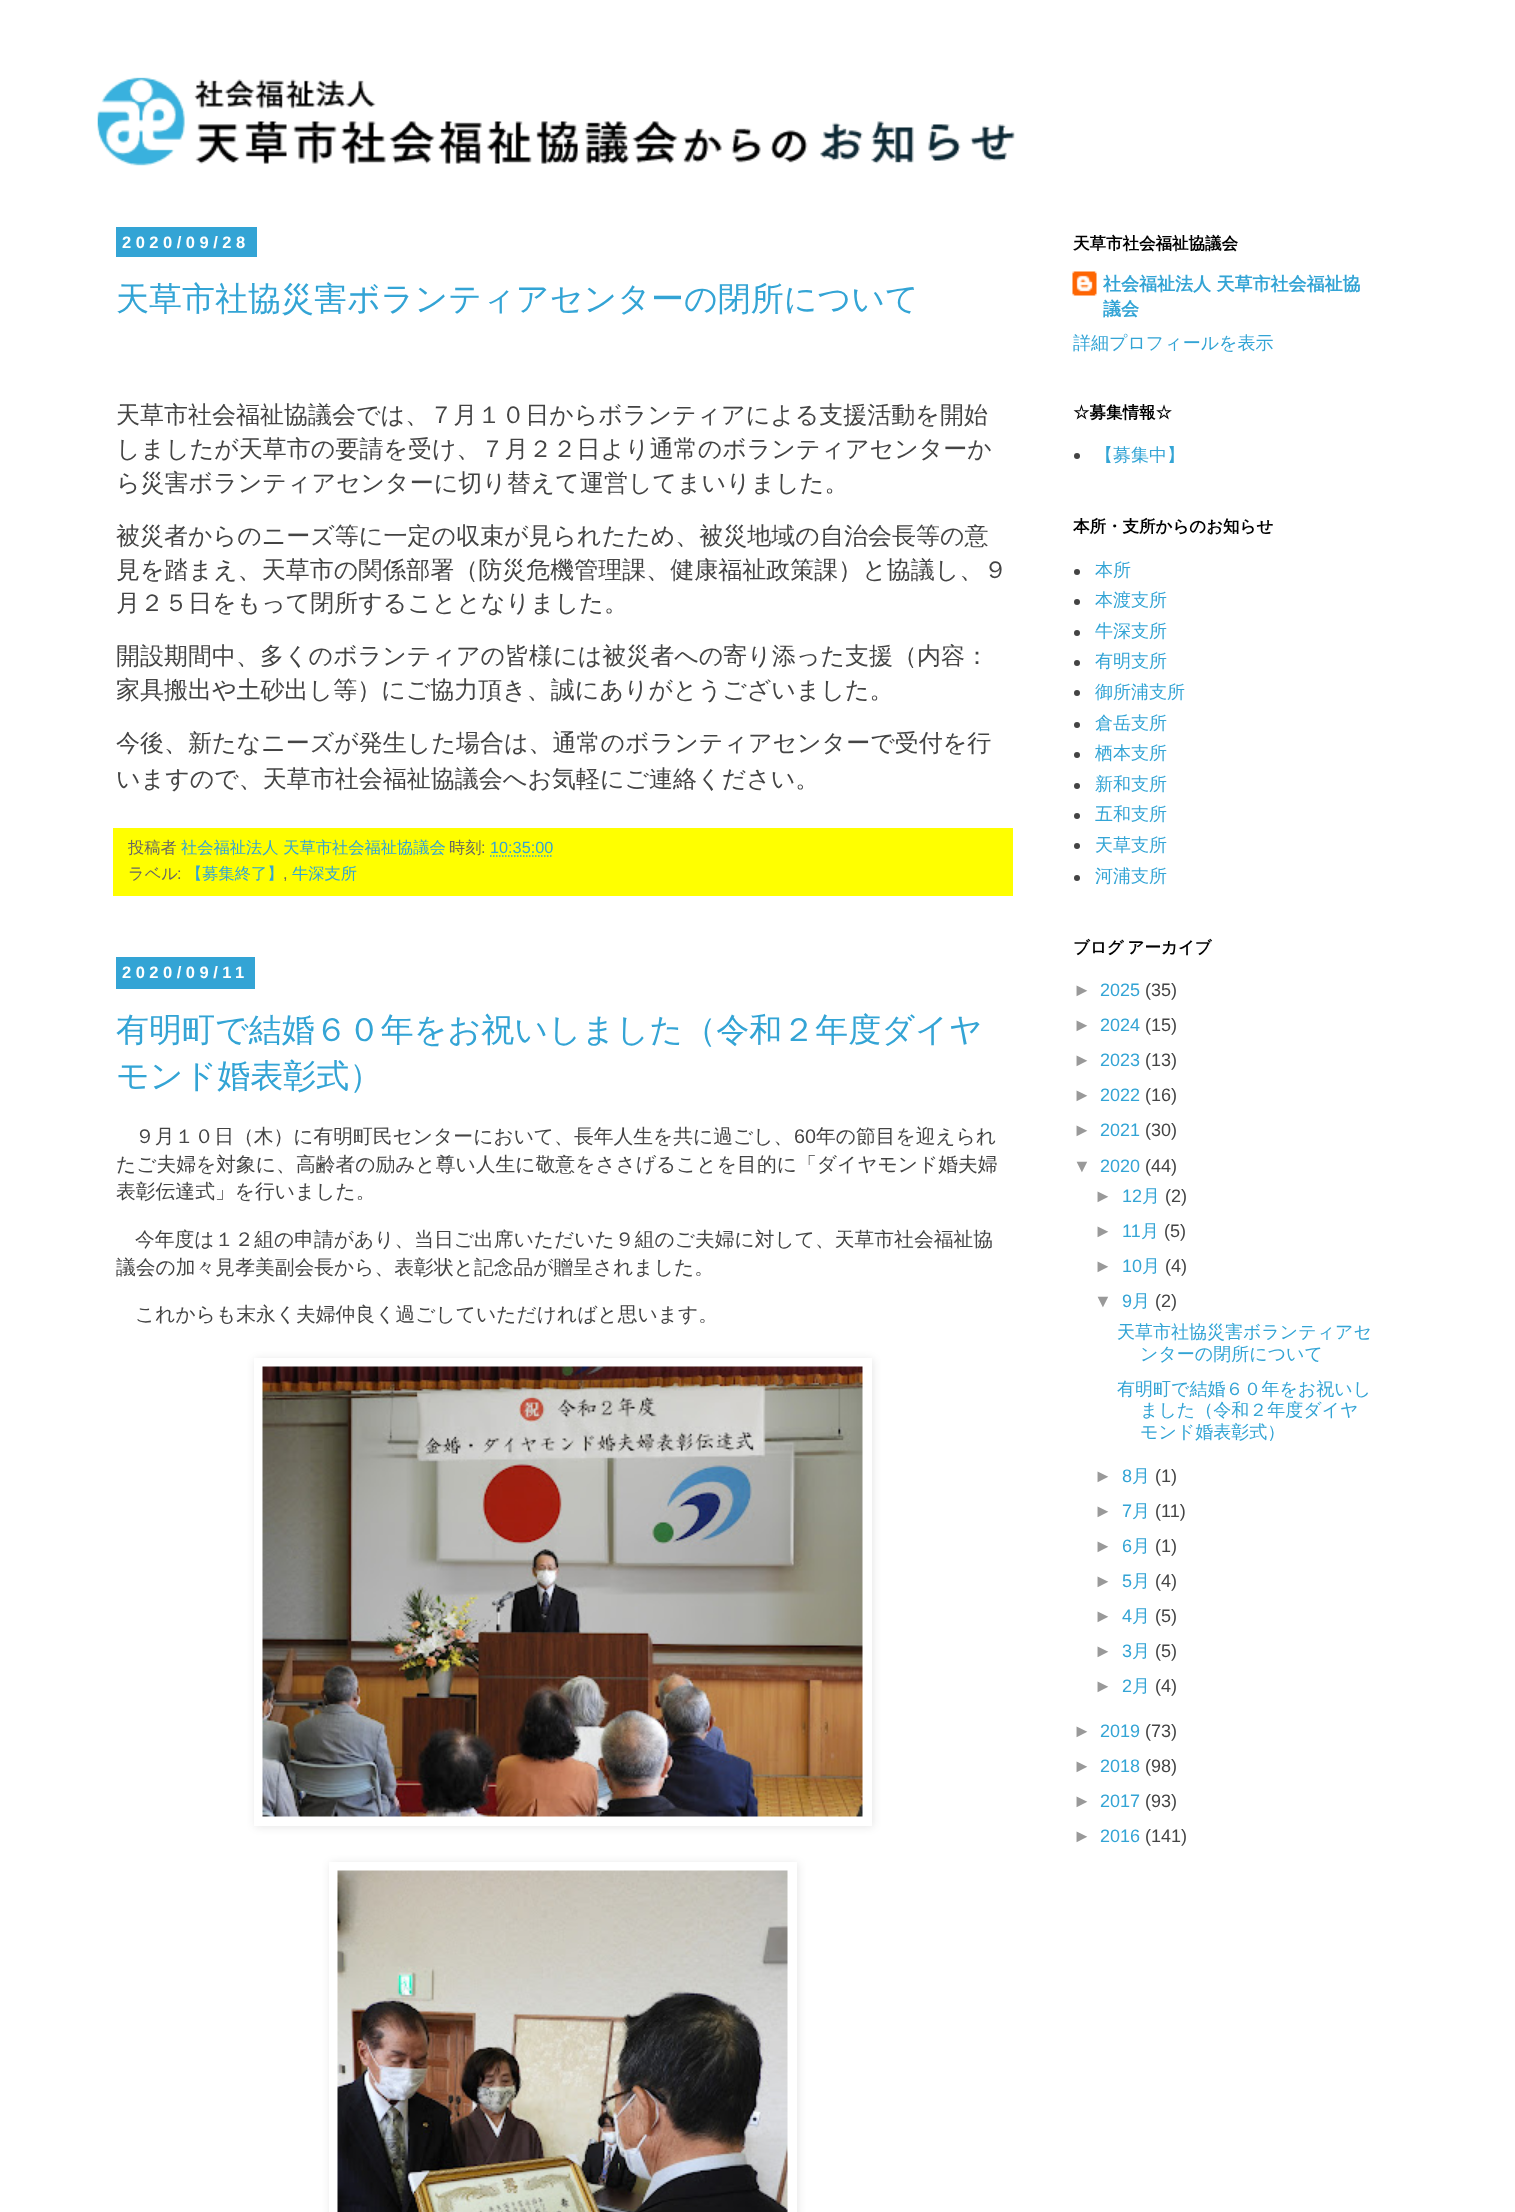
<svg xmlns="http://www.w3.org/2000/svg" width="1515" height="2212">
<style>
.a{font:bold 16.5px Liberation Sans;letter-spacing:4.5px;fill:#fff}
.b{font:500 33px WenQuanYi Zen Hei;fill:#33a4d5}
.c{font:500 24px WenQuanYi Zen Hei;fill:#444}
.d{font:500 16.25px WenQuanYi Zen Hei;fill:#666}
.e{font:500 16.25px WenQuanYi Zen Hei;fill:#33a4d5}
.f{font:16.25px Arimo;fill:#666}
.g{font:16.25px Arimo;fill:#33a4d5}
.h{font:500 19.8px WenQuanYi Zen Hei;fill:#444}
.i{font:19.8px Arimo;fill:#444}
.j{font:bold 16.5px WenQuanYi Zen Hei;fill:#000}
.k{font:bold 18px WenQuanYi Zen Hei;fill:#33a4d5}
.l{font:500 18px WenQuanYi Zen Hei;fill:#33a4d5}
.m{font:18px Liberation Sans;fill:#999}
.n{font:18px Arimo;fill:#33a4d5}
.o{font:18px Arimo;fill:#444}
</style>
<rect width="100%" height="100%" fill="#fff"/>
<image href="1.png" x="97" y="77" width="918" height="89"/>
<path fill="#33a4d5" d="M116 227h141v30H116z"/>
<path fill="#ff0" d="M113 828h900v68H113z"/>
<path fill="none" stroke="#33a4d5" stroke-width="1.5" stroke-dasharray="1.5 1.5" d="M490 856h63"/>
<path fill="#33a4d5" d="M116 957h139v32H116z"/>
<path fill="#0000001a" filter="blur(4px)" d="M255 1359h618v468H255z"/>
<path fill="#fff" d="M254 1358h618v468H254z"/>
<image href="2.png" x="262" y="1366" width="601" height="451"/>
<path fill="#0000001a" filter="blur(4px)" d="M330 1863h468v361H330z"/>
<path fill="#fff" d="M329 1862h468v350H329z"/>
<image href="3.png" x="337" y="1870" width="451" height="342"/>
<image href="4.png" x="1072" y="271" width="25" height="25"/>
<circle fill="#444" cx="1077" cy="456" r="3"/>
<circle fill="#444" cx="1077" cy="572" r="3"/>
<circle fill="#444" cx="1077" cy="602" r="3"/>
<circle fill="#444" cx="1077" cy="633" r="3"/>
<circle fill="#444" cx="1077" cy="663" r="3"/>
<circle fill="#444" cx="1077" cy="693" r="3"/>
<circle fill="#444" cx="1077" cy="725" r="3"/>
<circle fill="#444" cx="1077" cy="755" r="3"/>
<circle fill="#444" cx="1077" cy="786" r="3"/>
<circle fill="#444" cx="1077" cy="816" r="3"/>
<circle fill="#444" cx="1077" cy="846" r="3"/>
<circle fill="#444" cx="1077" cy="878" r="3"/>
<text class="a" x="122" y="248">2020/09/28</text>
<text class="b" x="116" y="310">天草市社協災害ボランティアセンターの閉所について</text>
<text class="c" x="116" y="423">天草市社会福祉協議会では、７月１０日からボランティアによる支援活動を開始</text>
<text class="c" x="116" y="457">しましたが天草市の要請を受け、７月２２日より通常のボランティアセンターか</text>
<text class="c" x="116" y="491">ら災害ボランティアセンターに切り替えて運営してまいりました。</text>
<text class="c" x="116" y="544">被災者からのニーズ等に一定の収束が見られたため、被災地域の自治会長等の意</text>
<text class="c" x="116" y="578">見を踏まえ、天草市の関係部署（防災危機管理課、健康福祉政策課）と協議し、９</text>
<text class="c" x="116" y="611">月２５日をもって閉所することとなりました。</text>
<text class="c" x="116" y="664">開設期間中、多くのボランティアの皆様には被災者への寄り添った支援（内容：</text>
<text class="c" x="116" y="698">家具搬出や土砂出し等）にご協力頂き、誠にありがとうございました。</text>
<text class="c" x="116" y="751">今後、新たなニーズが発生した場合は、通常のボランティアセンターで受付を行</text>
<text class="c" x="116" y="787">いますので、天草市社会福祉協議会へお気軽にご連絡ください。</text>
<text class="d" x="128" y="853">投稿者</text>
<text class="e" x="181" y="853">社会福祉法人 天草市社会福祉協議会</text>
<text class="d" x="449" y="853">時刻</text>
<text class="f" x="481" y="853">:</text>
<text class="g" x="490" y="853">10:35:00</text>
<text class="d" x="128" y="879">ラベル</text>
<text class="f" x="177" y="879">:</text>
<text class="e" x="186" y="879">【募集終了】</text>
<text class="e" x="292" y="879">牛深支所</text>
<text class="f" x="283" y="879">,</text>
<text class="a" x="122" y="978">2020/09/11</text>
<text class="b" x="116" y="1041">有明町で結婚６０年をお祝いしました（令和２年度ダイヤ</text>
<text class="b" x="116" y="1087">モンド婚表彰式）</text>
<text class="h" x="135" y="1143">９月１０日（木）に有明町民センターにおいて、長年人生を共に過ごし、</text>
<text class="i" x="794" y="1143">60</text>
<text class="h" x="816" y="1143">年の節目を迎えられ</text>
<text class="h" x="116" y="1171">たご夫婦を対象に、高齢者の励みと尊い人生に敬意をささげることを目的に「ダイヤモンド婚夫婦</text>
<text class="h" x="116" y="1198">表彰伝達式」を行いました。</text>
<text class="h" x="135" y="1246">今年度は１２組の申請があり、当日ご出席いただいた９組のご夫婦に対して、天草市社会福祉協</text>
<text class="h" x="116" y="1274">議会の加々見孝美副会長から、表彰状と記念品が贈呈されました。</text>
<text class="h" x="135" y="1321">これからも末永く夫婦仲良く過ごしていただければと思います。</text>
<text class="j" x="1073" y="249">天草市社会福祉協議会</text>
<text class="k" x="1103" y="290">社会福祉法人 天草市社会福祉協</text>
<text class="k" x="1103" y="315">議会</text>
<text class="l" x="1073" y="349">詳細プロフィールを表示</text>
<text class="j" x="1073" y="418">☆募集情報☆</text>
<text class="l" x="1095" y="461">【募集中】</text>
<text class="j" x="1073" y="532">本所・支所からのお知らせ</text>
<text class="l" x="1095" y="576">本所</text>
<text class="l" x="1095" y="606">本渡支所</text>
<text class="l" x="1095" y="637">牛深支所</text>
<text class="l" x="1095" y="667">有明支所</text>
<text class="l" x="1095" y="698">御所浦支所</text>
<text class="l" x="1095" y="729">倉岳支所</text>
<text class="l" x="1095" y="759">栖本支所</text>
<text class="l" x="1095" y="790">新和支所</text>
<text class="l" x="1095" y="820">五和支所</text>
<text class="l" x="1095" y="851">天草支所</text>
<text class="l" x="1095" y="882">河浦支所</text>
<text class="j" x="1073" y="953" word-spacing="-1">ブログ アーカイブ</text>
<text class="m" x="1073" y="996">►</text>
<text class="n" x="1100" y="996">2025</text>
<text class="o" x="1145" y="996">(35)</text>
<text class="m" x="1073" y="1031">►</text>
<text class="n" x="1100" y="1031">2024</text>
<text class="o" x="1145" y="1031">(15)</text>
<text class="m" x="1073" y="1066">►</text>
<text class="n" x="1100" y="1066">2023</text>
<text class="o" x="1145" y="1066">(13)</text>
<text class="m" x="1073" y="1101">►</text>
<text class="n" x="1100" y="1101">2022</text>
<text class="o" x="1145" y="1101">(16)</text>
<text class="m" x="1073" y="1136">►</text>
<text class="n" x="1100" y="1136">2021</text>
<text class="o" x="1145" y="1136">(30)</text>
<text class="m" x="1073" y="1172">▼</text>
<text class="n" x="1100" y="1172">2020</text>
<text class="o" x="1145" y="1172">(44)</text>
<text class="m" x="1094" y="1202">►</text>
<text class="n" x="1122" y="1202">12</text>
<text class="l" x="1142" y="1202">月</text>
<text class="o" x="1165" y="1202">(2)</text>
<text class="m" x="1094" y="1237">►</text>
<text class="n" x="1122" y="1237">11</text>
<text class="l" x="1141" y="1237">月</text>
<text class="o" x="1164" y="1237">(5)</text>
<text class="m" x="1094" y="1272">►</text>
<text class="n" x="1122" y="1272">10</text>
<text class="l" x="1142" y="1272">月</text>
<text class="o" x="1165" y="1272">(4)</text>
<text class="m" x="1094" y="1307">▼</text>
<text class="n" x="1122" y="1307">9</text>
<text class="l" x="1132" y="1307">月</text>
<text class="o" x="1155" y="1307">(2)</text>
<text class="l" x="1117" y="1338">天草市社協災害ボランティアセ</text>
<text class="l" x="1140" y="1360">ンターの閉所について</text>
<text class="l" x="1117" y="1395">有明町で結婚６０年をお祝いし</text>
<text class="l" x="1140" y="1416">ました（令和２年度ダイヤ</text>
<text class="l" x="1140" y="1438">モンド婚表彰式）</text>
<text class="m" x="1094" y="1482">►</text>
<text class="n" x="1122" y="1482">8</text>
<text class="l" x="1132" y="1482">月</text>
<text class="o" x="1155" y="1482">(1)</text>
<text class="m" x="1094" y="1517">►</text>
<text class="n" x="1122" y="1517">7</text>
<text class="l" x="1132" y="1517">月</text>
<text class="o" x="1155" y="1517">(11)</text>
<text class="m" x="1094" y="1552">►</text>
<text class="n" x="1122" y="1552">6</text>
<text class="l" x="1132" y="1552">月</text>
<text class="o" x="1155" y="1552">(1)</text>
<text class="m" x="1094" y="1587">►</text>
<text class="n" x="1122" y="1587">5</text>
<text class="l" x="1132" y="1587">月</text>
<text class="o" x="1155" y="1587">(4)</text>
<text class="m" x="1094" y="1622">►</text>
<text class="n" x="1122" y="1622">4</text>
<text class="l" x="1132" y="1622">月</text>
<text class="o" x="1155" y="1622">(5)</text>
<text class="m" x="1094" y="1657">►</text>
<text class="n" x="1122" y="1657">3</text>
<text class="l" x="1132" y="1657">月</text>
<text class="o" x="1155" y="1657">(5)</text>
<text class="m" x="1094" y="1692">►</text>
<text class="n" x="1122" y="1692">2</text>
<text class="l" x="1132" y="1692">月</text>
<text class="o" x="1155" y="1692">(4)</text>
<text class="m" x="1073" y="1737">►</text>
<text class="n" x="1100" y="1737">2019</text>
<text class="o" x="1145" y="1737">(73)</text>
<text class="m" x="1073" y="1772">►</text>
<text class="n" x="1100" y="1772">2018</text>
<text class="o" x="1145" y="1772">(98)</text>
<text class="m" x="1073" y="1807">►</text>
<text class="n" x="1100" y="1807">2017</text>
<text class="o" x="1145" y="1807">(93)</text>
<text class="m" x="1073" y="1842">►</text>
<text class="n" x="1100" y="1842">2016</text>
<text class="o" x="1145" y="1842">(141)</text>
</svg>
